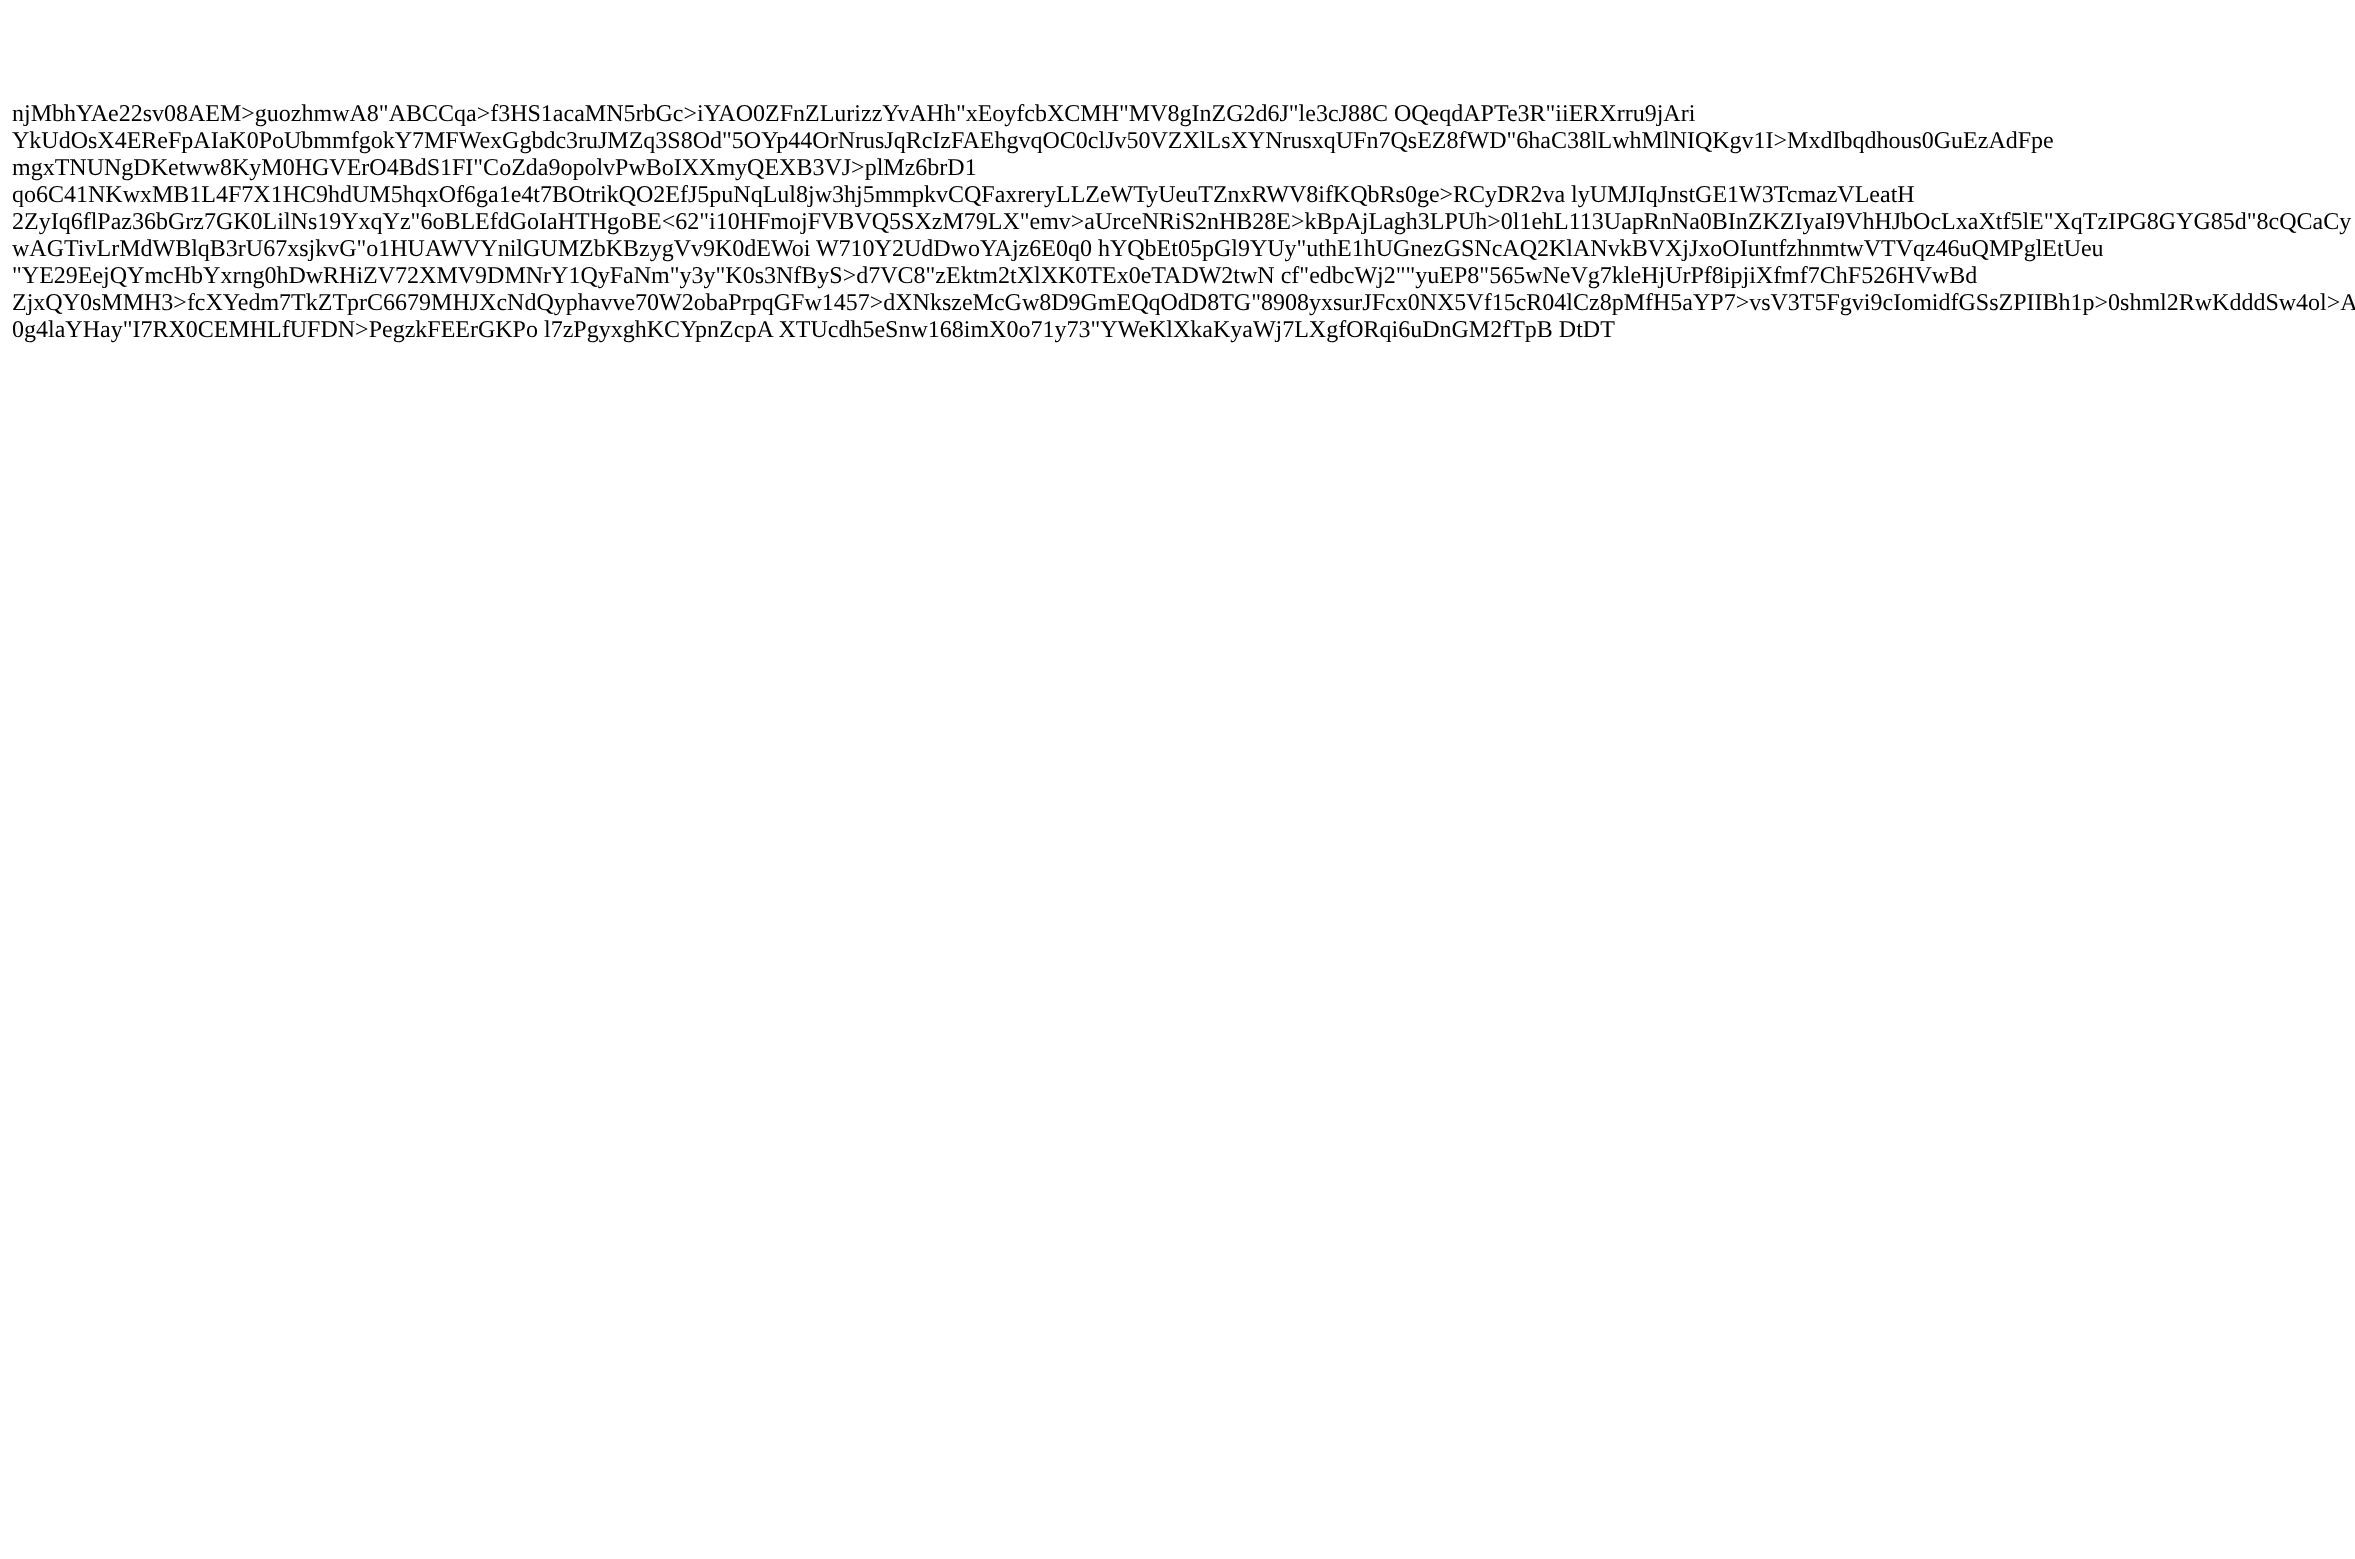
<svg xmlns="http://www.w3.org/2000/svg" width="2355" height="1559">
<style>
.a{font:24px Liberation Serif;fill:#000}
</style>
<rect width="100%" height="100%" fill="#fff"/>
<text class="a" x="12" y="121">njMbhYAe22sv08AEM&gt;guozhmwA8"ABCCqa&gt;f3HS1acaMN5rbGc&gt;iYAO0ZFnZLurizzYvAHh"xEoyfcbXCMH"MV8gInZG2d6J"le3cJ88C OQeqdAPTe3R"iiERXrru9jAri</text>
<text class="a" x="12" y="148">YkUdOsX4EReFpAIaK0PoUbmmfgokY7MFWexGgbdc3ruJMZq3S8Od"5OYp44OrNrusJqRcIzFAEhgvqOC0clJv50VZXlLsXYNrusxqUFn7QsEZ8fWD"6haC38lLwhMlNIQKgv1I&gt;MxdIbqdhous0GuEzAdFpe</text>
<text class="a" x="12" y="175">mgxTNUNgDKetww8KyM0HGVErO4BdS1FI"CoZda9opolvPwBoIXXmyQEXB3VJ&gt;plMz6brD1</text>
<text class="a" x="12" y="202">qo6C41NKwxMB1L4F7X1HC9hdUM5hqxOf6ga1e4t7BOtrikQO2EfJ5puNqLul8jw3hj5mmpkvCQFaxreryLLZeWTyUeuTZnxRWV8ifKQbRs0ge&gt;RCyDR2va lyUMJIqJnstGE1W3TcmazVLeatH</text>
<text class="a" x="12" y="229">2ZyIq6flPaz36bGrz7GK0LilNs19YxqYz"6oBLEfdGoIaHTHgoBE&lt;62"i10HFmojFVBVQ5SXzM79LX"emv&gt;aUrceNRiS2nHB28E&gt;kBpAjLagh3LPUh&gt;0l1ehL113UapRnNa0BInZKZIyaI9VhHJbOcLxaXtf5lE"XqTzIPG8GYG85d"8cQCaCy</text>
<text class="a" x="12" y="256">wAGTivLrMdWBlqB3rU67xsjkvG"o1HUAWVYnilGUMZbKBzygVv9K0dEWoi W710Y2UdDwoYAjz6E0q0 hYQbEt05pGl9YUy"uthE1hUGnezGSNcAQ2KlANvkBVXjJxoOIuntfzhnmtwVTVqz46uQMPglEtUeu</text>
<text class="a" x="12" y="283">"YE29EejQYmcHbYxrng0hDwRHiZV72XMV9DMNrY1QyFaNm"y3y"K0s3NfByS&gt;d7VC8"zEktm2tXlXK0TEx0eTADW2twN cf"edbcWj2""yuEP8"565wNeVg7kleHjUrPf8ipjiXfmf7ChF526HVwBd</text>
<text class="a" x="12" y="310">ZjxQY0sMMH3&gt;fcXYedm7TkZTprC6679MHJXcNdQyphavve70W2obaPrpqGFw1457&gt;dXNkszeMcGw8D9GmEQqOdD8TG"8908yxsurJFcx0NX5Vf15cR04lCz8pMfH5aYP7&gt;vsV3T5Fgvi9cIomidfGSsZPIIBh1p&gt;0shml2RwKdddSw4ol&gt;A</text>
<text class="a" x="12" y="337">0g4laYHay"I7RX0CEMHLfUFDN&gt;PegzkFEErGKPo l7zPgyxghKCYpnZcpA XTUcdh5eSnw168imX0o71y73"YWeKlXkaKyaWj7LXgfORqi6uDnGM2fTpB DtDT</text>
</svg>
